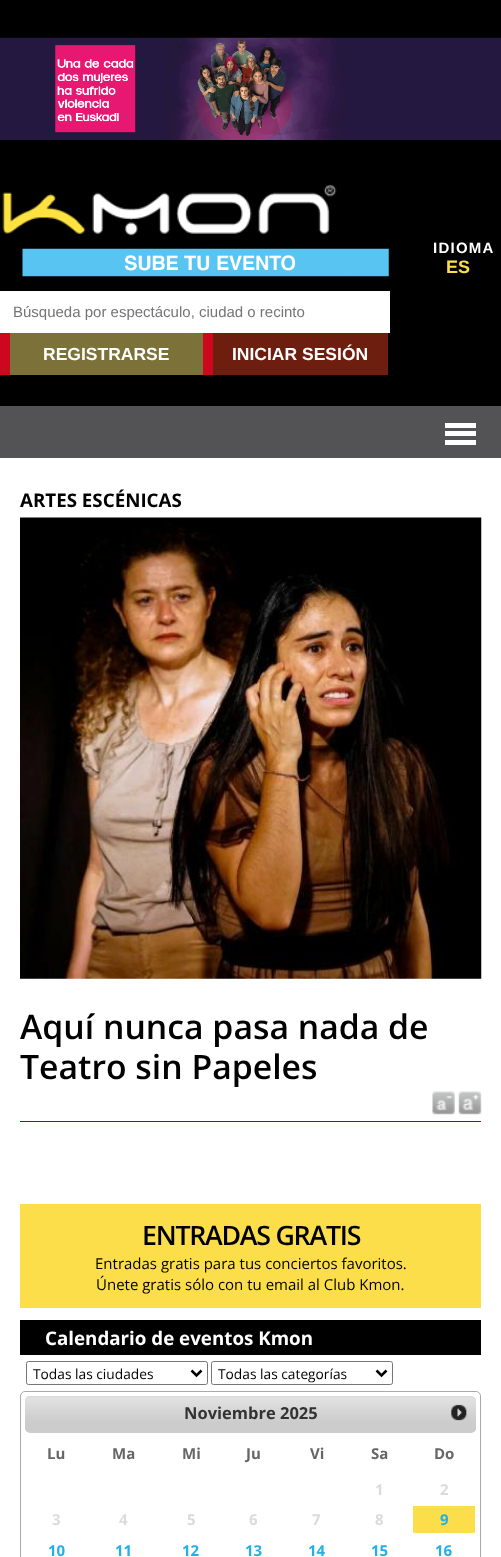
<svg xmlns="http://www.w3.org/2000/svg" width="501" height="1557">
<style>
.a{font:bold 15px Liberation Sans;letter-spacing:1.25px;fill:#fff}
.b{font:bold 18px Liberation Sans;fill:#fbde4a}
.c{font:15px Liberation Sans;fill:#757575}
.d{font:bold 17.5px Liberation Sans;fill:#fff}
.e{font:bold 18.75px Open Sans;fill:#000}
.f{font:600 33.75px Open Sans;fill:#000}
.g{font:600 26.75px Open Sans;letter-spacing:-1.25px;fill:#000}
.h{font:15px Open Sans;fill:#000}
.i{font:bold 18.75px Open Sans;fill:#fff}
.j{font:13.75px Open Sans;fill:#000}
.k{font:bold 16.5px Open Sans;fill:#333}
.l{font:bold 15px Open Sans;fill:#666}
.m{font:bold 15px Open Sans;fill:#dbdbdb}
.n{font:bold 15px Open Sans;fill:#21b0e7}
</style>
<defs>
<clipPath id="clip1"><path d="M0 303h390v17H0z"/></clipPath>
</defs>
<rect width="100%" height="100%" fill="#fff"/>
<path fill="#000" d="M0 0h501v406H0z"/>
<image href="1.png" x="0" y="37" width="501" height="103"/>
<image href="2.png" x="2" y="184" width="335" height="52"/>
<image href="3.png" x="22" y="248" width="367" height="29"/>
<path fill="#fff" d="M0 291h390v42H0z"/>
<path fill="#7c7239" d="M10 333h193v42H10z"/>
<path fill="#cd071e" d="M203 333h10v42H203z"/>
<path fill="#cd071e" d="M0 333h10v42H0z"/>
<path fill="#6e1e0e" d="M213 333h175v42H213z"/>
<path fill="#535355" d="M0 406h501v52H0z"/>
<path fill="#fff" d="M445 423h31v5H445z"/>
<path fill="#fff" d="M445 431h31v5H445z"/>
<path fill="#fff" d="M445 440h31v5H445z"/>
<image href="4.png" x="20" y="517" width="462" height="462"/>
<path fill="#6e1e0e" d="M20 1121h461v1H20z"/>
<image href="5.png" x="432" y="1091" width="23" height="24"/>
<image href="6.png" x="458" y="1091" width="24" height="24"/>
<path fill="#fbde4a" d="M20 1204h461v104H20z"/>
<path fill="#000" d="M20 1320h461v35H20z"/>
<rect fill="none" stroke="#767676" x="26.5" y="1361.5" width="181" height="23" rx="2"/>
<path fill="none" stroke="#000" stroke-width="2.5" d="M191.5 1370.5l5 5l5-5"/>
<rect fill="none" stroke="#767676" x="211.5" y="1361.5" width="181" height="23" rx="2"/>
<path fill="none" stroke="#000" stroke-width="2.5" d="M376.5 1370.5l5 5l5-5"/>
<rect fill="none" stroke="#aaa" x="20.5" y="1391.5" width="460" height="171" rx="4.5"/>
<rect fill="#ccc" x="25" y="1396" width="451" height="37" rx="5"/>
<image href="7.png" x="25" y="1396" width="451" height="36"/>
<image href="8.png" x="451" y="1404" width="16" height="17"/>
<path fill="#fbde4a" d="M413 1506h62v27H413z"/>
<text class="a" x="433" y="253">IDIOMA</text>
<text class="b" x="446" y="273">ES</text>
<g clip-path="url(#clip1)">
<text class="c" x="13" y="317">Búsqueda por espectáculo, ciudad o recinto</text>
</g>
<text class="d" x="43" y="360">REGISTRARSE</text>
<text class="d" x="232" y="360">INICIAR SESIÓN</text>
<text class="e" x="20" y="507">ARTES ESCÉNICAS</text>
<text class="f" x="20" y="1039">Aquí nunca pasa nada de</text>
<text class="f" x="20" y="1079">Teatro sin Papeles</text>
<text class="g" x="142" y="1245">ENTRADAS GRATIS</text>
<text class="h" x="95" y="1269">Entradas gratis para tus conciertos favoritos.</text>
<text class="h" x="96" y="1290">Únete gratis sólo con tu email al Club Kmon.</text>
<text class="i" x="45" y="1345">Calendario de eventos Kmon</text>
<text class="j" x="33" y="1379">Todas las ciudades</text>
<text class="j" x="218" y="1379">Todas las categorías</text>
<text class="k" x="184" y="1419">Noviembre 2025</text>
<text class="l" x="47" y="1459">Lu</text>
<text class="l" x="112" y="1459">Ma</text>
<text class="l" x="182" y="1459">Mi</text>
<text class="l" x="246" y="1459">Ju</text>
<text class="l" x="310" y="1459">Vi</text>
<text class="l" x="371" y="1459">Sa</text>
<text class="l" x="434" y="1459">Do</text>
<text class="m" x="375" y="1495">1</text>
<text class="m" x="440" y="1495">2</text>
<text class="m" x="52" y="1525">3</text>
<text class="m" x="119" y="1525">4</text>
<text class="m" x="187" y="1525">5</text>
<text class="m" x="249" y="1525">6</text>
<text class="m" x="312" y="1525">7</text>
<text class="m" x="375" y="1525">8</text>
<text class="n" x="440" y="1525">9</text>
<text class="n" x="48" y="1556">10</text>
<text class="n" x="115" y="1556">11</text>
<text class="n" x="182" y="1556">12</text>
<text class="n" x="245" y="1556">13</text>
<text class="n" x="308" y="1556">14</text>
<text class="n" x="371" y="1556">15</text>
<text class="n" x="435" y="1556">16</text>
</svg>
